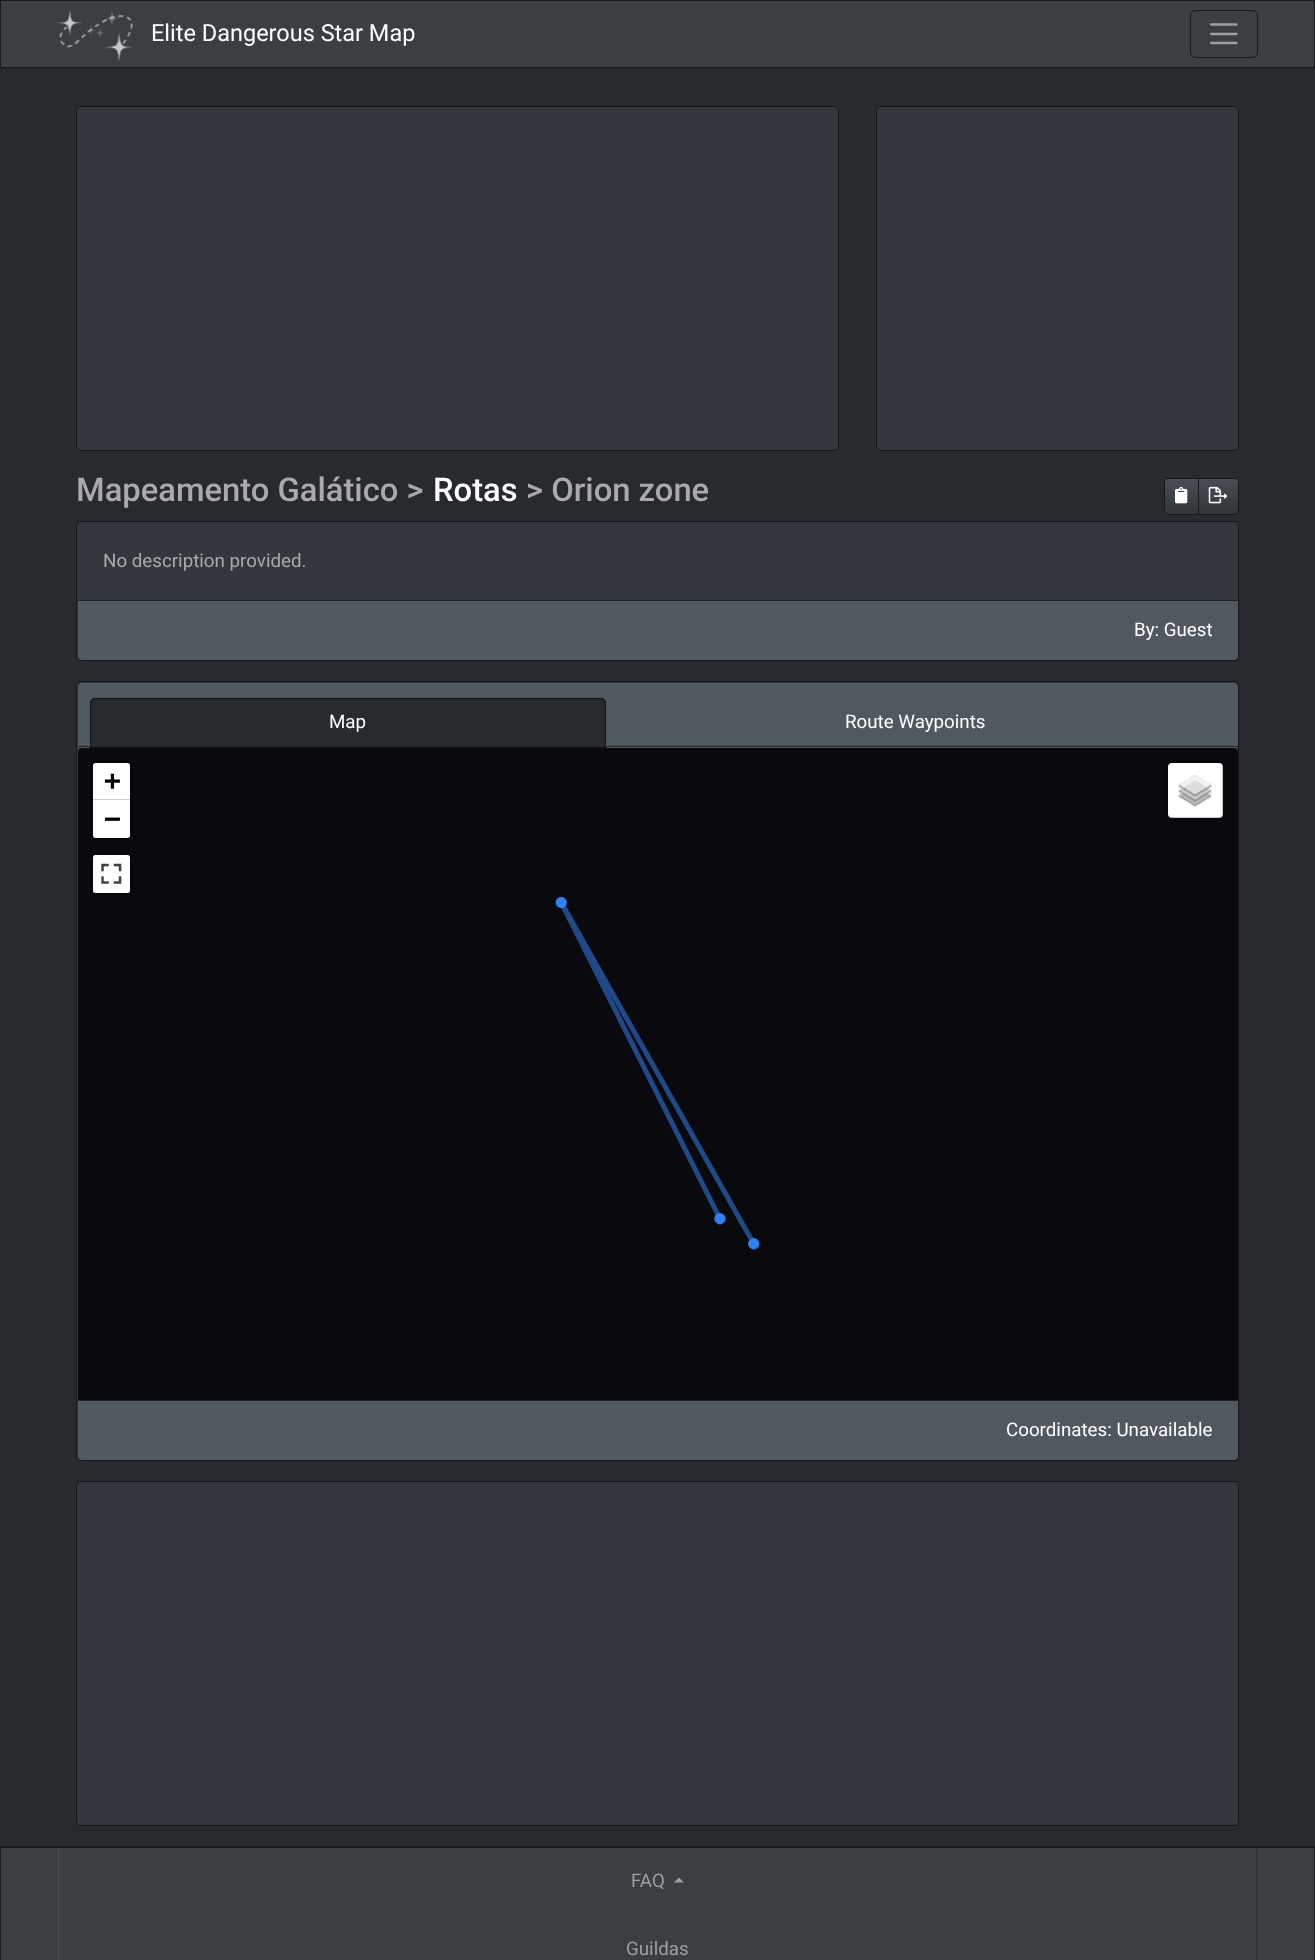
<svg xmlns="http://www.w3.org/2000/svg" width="1315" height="1960">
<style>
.a{font:23.5px Roboto;fill:#fff}
.b{font:500 32.75px Roboto;fill:#aaa}
.c{font:500 32.75px Roboto;fill:#fff}
.d{font:18.75px Roboto;fill:#aaa}
.e{font:18.75px Roboto;fill:#fff}
.f{font:bold 28px DejaVu Sans Mono;fill:#000}
.g{font:18.75px Roboto;fill:#9d9fa2}
</style>
<defs>
<linearGradient id="g1" gradientUnits="userSpaceOnUse" x1="1181" y1="479" x2="1181" y2="514"><stop offset="0" stop-color="#484e55"/><stop offset="0.6" stop-color="#3a3f44"/><stop offset="1" stop-color="#313539"/></linearGradient>
<linearGradient id="g2" gradientUnits="userSpaceOnUse" x1="1218" y1="479" x2="1218" y2="514"><stop offset="0" stop-color="#484e55"/><stop offset="0.6" stop-color="#3a3f44"/><stop offset="1" stop-color="#313539"/></linearGradient>
</defs>
<rect width="100%" height="100%" fill="#272b30"/>
<path fill="#3a3f44" stroke="#17191b" d="M0.5 0.5h1314v67H0.5z"/>
<image href="1.png" x="57" y="10" width="76" height="51"/>
<rect fill="none" stroke="#17191b" x="1190.5" y="10.5" width="67" height="47" rx="4.5"/>
<path fill="none" stroke="#9d9fa2" stroke-width="2.3" stroke-linecap="round" d="M1211 24.5h25.5m-25.5 9.5h25.5m-25.5 9h25.5"/>
<rect fill="#32383e" x="76" y="106" width="763" height="345" rx="5"/>
<rect fill="none" stroke="#00000099" x="76.5" y="106.5" width="762" height="344" rx="4.5"/>
<rect fill="#32383e" x="876" y="106" width="363" height="345" rx="5"/>
<rect fill="none" stroke="#00000099" x="876.5" y="106.5" width="362" height="344" rx="4.5"/>
<path fill="#3a3f44" d="M1168 478h31v37h-31c-2 0-4-2-4-4v-29c0-2 2-4 4-4z"/>
<path fill="url(#g1)" d="M1165 479h33v35H1165z"/>
<path fill="none" stroke="#00000099" d="M1168 478.5h30.5v36h-30.5c-2 0-3.5-1.5-3.5-3.5v-29c0-2 1.5-3.5 3.5-3.5z"/>
<image href="2.png" x="1175" y="486" width="13" height="18"/>
<path fill="#3a3f44" d="M1198 478h37c2 0 4 2 4 4v29c0 2-2 4-4 4h-37z"/>
<path fill="url(#g2)" d="M1199 479h39v35H1199z"/>
<path fill="none" stroke="#00000099" d="M1198.5 478.5h36.5c2 0 3.5 1.5 3.5 3.5v29c0 2-1.5 3.5-3.5 3.5h-36.5z"/>
<image href="3.png" x="1208" y="486" width="20" height="18"/>
<rect fill="#32383e" x="76" y="521" width="1163" height="140" rx="5"/>
<rect fill="none" stroke="#00000099" x="76.5" y="521.5" width="1162" height="139" rx="4.5"/>
<path fill="#515960" d="M78 600h1160v56c0 2-2 4-4 4h-1152c-2 0-4-2-4-4z"/>
<path fill="#202426" d="M78 600h1160v1H78z"/>
<rect fill="#32383e" x="76" y="681" width="1163" height="780" rx="5"/>
<rect fill="none" stroke="#00000099" x="76.5" y="681.5" width="1162" height="779" rx="4.5"/>
<path fill="#515960" d="M82 683h1152c2 0 4 2 4 4v61h-1160v-61c0-2 2-4 4-4z"/>
<path fill="#202426" d="M78 746h1160v1H78z"/>
<path fill="#272b30" d="M95 698h506c3 0 5 2 5 5v45h-516v-45c0-3 2-5 5-5z"/>
<path fill="none" stroke="#00000099" d="M95 698.5h506c2.5 0 4.5 2 4.5 4.5v44.5h-515v-44.5c0-2.5 2-4.5 4.5-4.5z"/>
<path fill="#0a0a0e" d="M83 748h1150c3 0 5 2 5 5v647h-1160v-647c0-3 2-5 5-5z"/>
<rect fill="none" stroke="#08080b" stroke-width="3" x="91.5" y="761.5" width="40" height="77" rx="3.5"/>
<path fill="#fff" d="M95.5 763h32c1.5 0 2.5 1 2.5 2.5v34.5h-37v-34.5c0-1.5 1-2.5 2.5-2.5z"/>
<path fill="#ccc" d="M93 799h37v1H93z"/>
<path fill="#fff" d="M93 800h37v35.5c0 1.5-1 2.5-2.5 2.5h-32c-1.5 0-2.5-1-2.5-2.5z"/>
<rect fill="none" stroke="#08080b" stroke-width="3" x="91.5" y="854.5" width="40" height="39" rx="3.5"/>
<rect fill="#fff" x="93" y="855" width="37" height="38" rx="2.5"/>
<image href="4.png" x="101" y="863" width="21" height="21"/>
<rect fill="#fff" x="1168" y="763" width="55" height="55" rx="4"/>
<rect fill="none" stroke="#00000033" stroke-width="3" x="1166.5" y="761.5" width="57" height="57" rx="4.5"/>
<image href="5.png" x="1178" y="775" width="34" height="32"/>
<image href="6.png" x="555" y="896" width="205" height="354"/>
<path fill="#515960" d="M78 1400h1160v56c0 2-2 4-4 4h-1152c-2 0-4-2-4-4z"/>
<path fill="#202426" d="M78 1400h1160v1H78z"/>
<rect fill="#32383e" x="76" y="1481" width="1163" height="345" rx="5"/>
<rect fill="none" stroke="#00000099" x="76.5" y="1481.5" width="1162" height="344" rx="4.5"/>
<path fill="#3a3f44" d="M0 1846h1315v114H0z"/>
<path fill="#17191b" d="M0 1846h1315l-1 2h-1313z"/>
<path fill="#00000099" d="M1315 1846v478h-1v-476z"/>
<path fill="#00000099" d="M0 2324v-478l1 2v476z"/>
<path fill="#9d9fa2" d="M684 1882.5h-10l5-5z"/>
<path fill="#2e3236" d="M1256 1848h1v112H1256z"/>
<path fill="#4e5257" d="M58 1848h1v112H58z"/>
<text class="a" x="151" y="41">Elite Dangerous Star Map</text>
<text class="b" x="76" y="501">Mapeamento Galático &gt;</text>
<text class="c" x="433" y="501">Rotas</text>
<text class="b" x="526" y="501">&gt; Orion zone</text>
<text class="d" x="103" y="567">No description provided.</text>
<text class="e" x="1134" y="636">By: Guest</text>
<text class="e" x="329" y="728">Map</text>
<text class="e" x="845" y="728">Route Waypoints</text>
<text class="f" x="104" y="790">+</text>
<text class="f" x="104" y="828">−</text>
<text class="e" x="1006" y="1436">Coordinates: Unavailable</text>
<text class="g" x="631" y="1887">FAQ</text>
<text class="g" x="626" y="1955">Guildas</text>
</svg>
